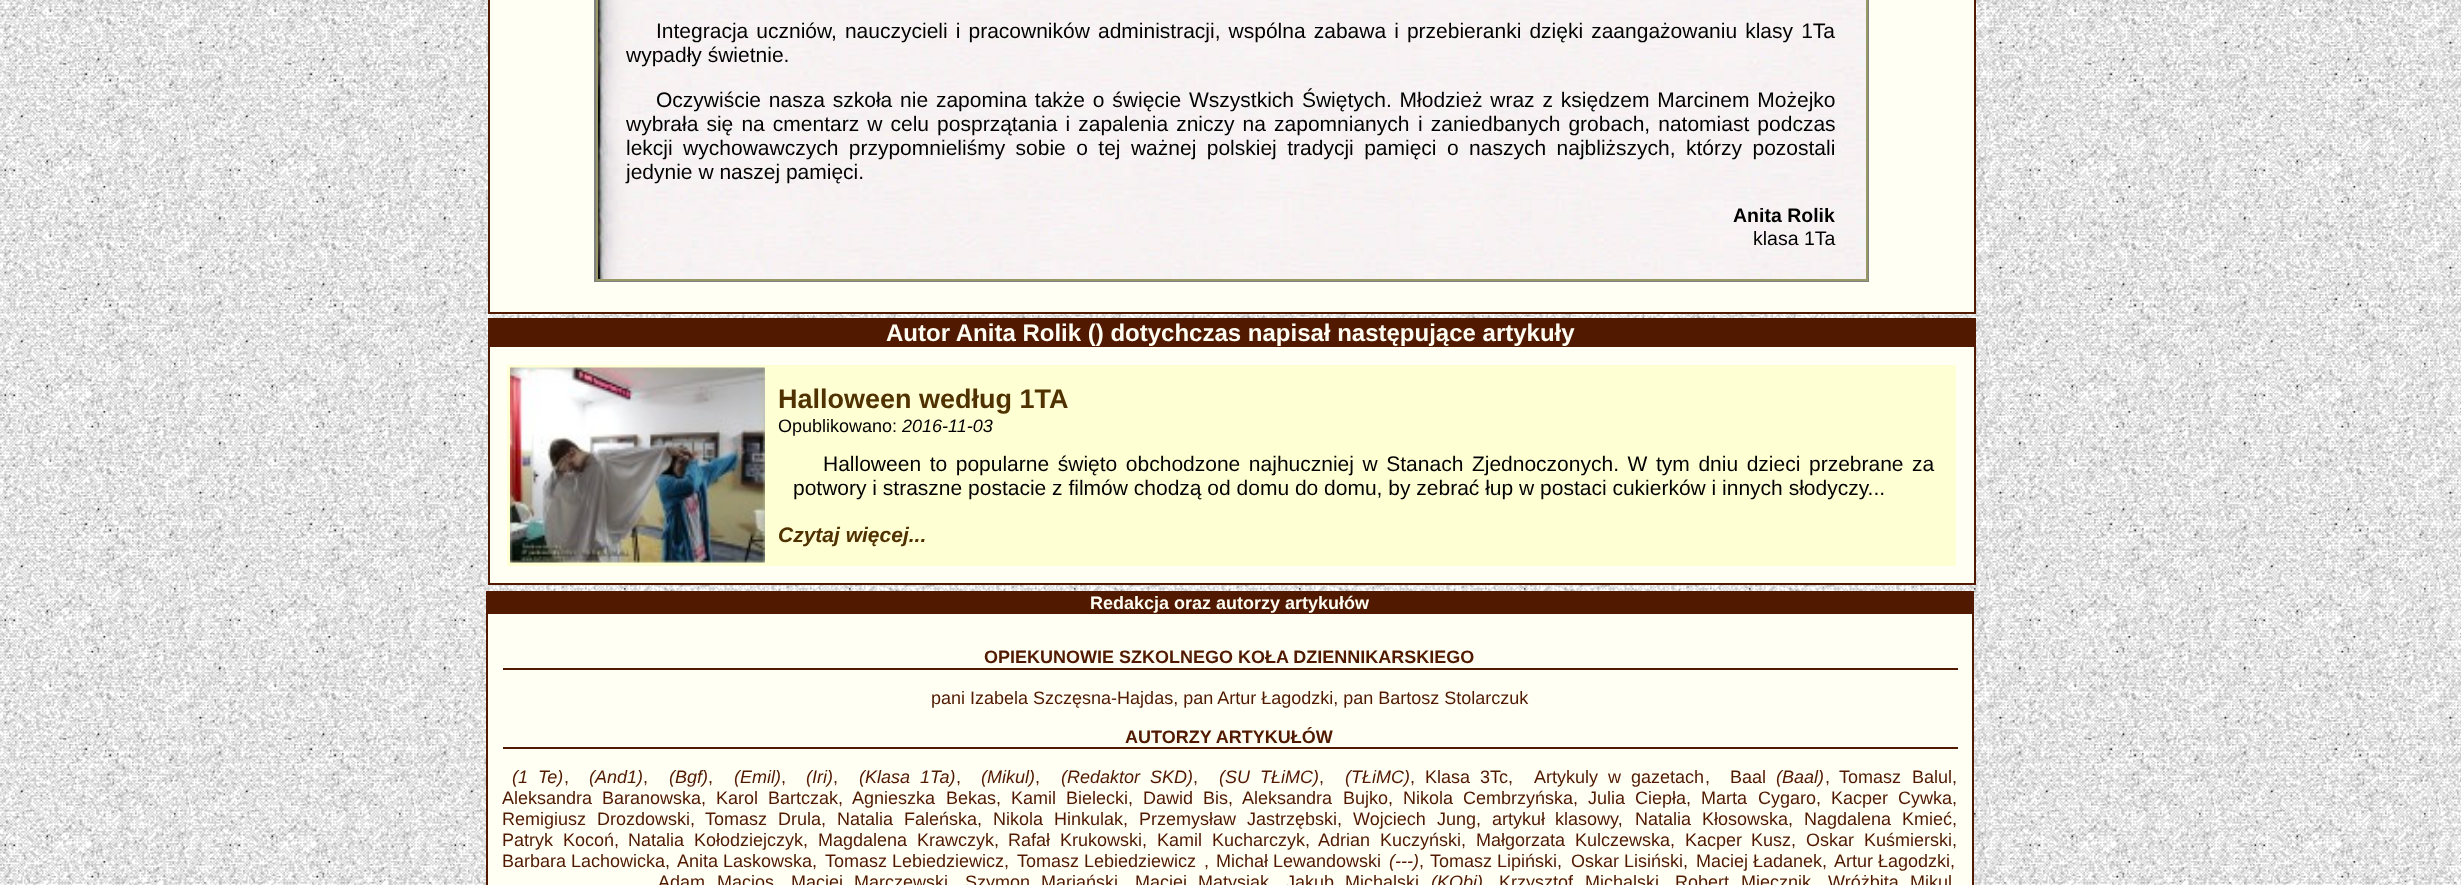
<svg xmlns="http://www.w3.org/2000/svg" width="2461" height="885">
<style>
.a{font:21px Liberation Sans;fill:#000}
.b{font:bold 19.5px Liberation Sans;fill:#000}
.c{font:19.5px Liberation Sans;fill:#000}
.d{font:bold 24px Liberation Sans;fill:#fffff4}
.e{font:bold 27px Liberation Sans;fill:#503200}
.f{font:18px Liberation Sans;fill:#000}
.g{font:italic 18px Liberation Sans;fill:#000}
.h{font:italic bold 21px Liberation Sans;fill:#503200}
.i{font:bold 18px Liberation Sans;fill:#fffff4}
.j{font:bold 18px Liberation Sans;fill:#501900}
.k{font:18px Liberation Sans;fill:#501900}
.l{font:italic 18px Liberation Sans;fill:#501900}
</style>
<rect width="100%" height="100%" fill="#fff"/>
<image href="1.png" x="0" y="0" width="2461" height="885"/>
<path fill="#fffff4" stroke="#501900" stroke-width="2" d="M489 -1h1486v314H489z"/>
<image href="2.png" x="598" y="0" width="1268" height="279"/>
<path fill="none" stroke="#808080" stroke-width="2" d="M595 -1h1273v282H595z"/>
<path fill="none" stroke="#996" stroke-width="2" d="M597 -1h1270v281H597z"/>
<path fill="#fffff4" d="M490 347h1484v236H490z"/>
<path fill="none" stroke="#501900" stroke-width="2" d="M489 319h1486v265H489z"/>
<path fill="#501900" d="M490 320h1484v27H490z"/>
<path fill="#ffffd4" d="M507 365h1449v201H507z"/>
<image href="3.png" x="510" y="367" width="255" height="196"/>
<path fill="#fffff4" d="M488 614h1484v271H488z"/>
<path fill="none" stroke="#501900" stroke-width="2" d="M487 592h1486v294H487z"/>
<path fill="#501900" d="M488 593h1484v21H488z"/>
<path fill="#501900" d="M503 668h1455v2H503z"/>
<path fill="#501900" d="M503 747h1455v2H503z"/>
<text class="a" x="656" y="38" word-spacing="2.25">Integracja uczniów, nauczycieli i pracowników administracji, wspólna zabawa i przebieranki dzięki zaangażowaniu klasy 1Ta</text>
<text class="a" x="626" y="62">wypadły świetnie.</text>
<text class="a" x="656" y="107" word-spacing="2">Oczywiście nasza szkoła nie zapomina także o święcie Wszystkich Świętych. Młodzież wraz z księdzem Marcinem Możejko</text>
<text class="a" x="626" y="131" word-spacing="2.25">wybrała się na cmentarz w celu posprzątania i zapalenia zniczy na zapomnianych</text>
<text class="a" x="1418" y="131" word-spacing="2.25">i zaniedbanych grobach, natomiast podczas</text>
<text class="a" x="626" y="155" word-spacing="4.6">lekcji wychowawczych przypomnieliśmy sobie o tej ważnej polskiej tradycji pamięci o naszych najbliższych, którzy pozostali</text>
<text class="a" x="626" y="179">jedynie w naszej pamięci.</text>
<text class="b" x="1733" y="222">Anita Rolik</text>
<text class="c" x="1753" y="245">klasa 1Ta</text>
<text class="d" x="886" y="341">Autor Anita Rolik () dotychczas napisał następujące artykuły</text>
<text class="e" x="778" y="408">Halloween według 1TA</text>
<text class="f" x="778" y="432">Opublikowano:</text>
<text class="g" x="902" y="432">2016-11-03</text>
<text class="a" x="823" y="471" word-spacing="2.75">Halloween to popularne święto obchodzone najhuczniej w Stanach Zjednoczonych. W tym dniu dzieci przebrane za</text>
<text class="a" x="793" y="495">potwory i straszne postacie z filmów chodzą od domu do domu, by zebrać łup w postaci cukierków i innych słodyczy...</text>
<text class="h" x="778" y="542">Czytaj więcej...</text>
<text class="i" x="1090" y="609">Redakcja oraz autorzy artykułów</text>
<text class="j" x="984" y="663">OPIEKUNOWIE SZKOLNEGO KOŁA DZIENNIKARSKIEGO</text>
<text class="k" x="931" y="704">pani Izabela Szczęsna-Hajdas, pan Artur Łagodzki, pan Bartosz Stolarczuk</text>
<text class="j" x="1125" y="743">AUTORZY ARTYKUŁÓW</text>
<text class="l" x="512" y="783" word-spacing="5">(1 Te)</text>
<text class="k" x="564" y="783">,</text>
<text class="l" x="589" y="783">(And1)</text>
<text class="k" x="643" y="783">,</text>
<text class="l" x="669" y="783">(Bgf)</text>
<text class="k" x="708" y="783">,</text>
<text class="l" x="734" y="783">(Emil)</text>
<text class="k" x="781" y="783">,</text>
<text class="l" x="806" y="783">(Iri)</text>
<text class="k" x="833" y="783">,</text>
<text class="l" x="859" y="783" word-spacing="5">(Klasa 1Ta)</text>
<text class="k" x="956" y="783">,</text>
<text class="l" x="981" y="783">(Mikul)</text>
<text class="k" x="1035" y="783">,</text>
<text class="l" x="1061" y="783" word-spacing="5">(Redaktor SKD)</text>
<text class="k" x="1193" y="783">,</text>
<text class="l" x="1219" y="783" word-spacing="5">(SU TŁiMC)</text>
<text class="k" x="1319" y="783">,</text>
<text class="l" x="1345" y="783">(TŁiMC)</text>
<text class="k" x="1410" y="783">,</text>
<text class="k" x="1425" y="783">Klasa</text>
<text class="k" x="1480" y="783">3Tc,</text>
<text class="k" x="1534" y="783" word-spacing="5">Artykuly w gazetach</text>
<text class="k" x="1705" y="783">,</text>
<text class="k" x="1730" y="783">Baal</text>
<text class="l" x="1776" y="783">(Baal)</text>
<text class="k" x="1825" y="783">,</text>
<text class="k" x="1839" y="783">Tomasz</text>
<text class="k" x="1912" y="783">Balul,</text>
<text class="k" x="502" y="804">Aleksandra</text>
<text class="k" x="602" y="804">Baranowska,</text>
<text class="k" x="716" y="804">Karol</text>
<text class="k" x="768" y="804">Bartczak,</text>
<text class="k" x="852" y="804">Agnieszka</text>
<text class="k" x="946" y="804">Bekas,</text>
<text class="k" x="1011" y="804">Kamil</text>
<text class="k" x="1066" y="804">Bielecki,</text>
<text class="k" x="1143" y="804">Dawid</text>
<text class="k" x="1203" y="804">Bis,</text>
<text class="k" x="1242" y="804">Aleksandra</text>
<text class="k" x="1343" y="804">Bujko,</text>
<text class="k" x="1403" y="804">Nikola</text>
<text class="k" x="1463" y="804">Cembrzyńska,</text>
<text class="k" x="1588" y="804">Julia</text>
<text class="k" x="1635" y="804">Ciepła,</text>
<text class="k" x="1701" y="804">Marta</text>
<text class="k" x="1758" y="804">Cygaro,</text>
<text class="k" x="1831" y="804">Kacper</text>
<text class="k" x="1898" y="804">Cywka,</text>
<text class="k" x="502" y="825">Remigiusz</text>
<text class="k" x="597" y="825">Drozdowski,</text>
<text class="k" x="705" y="825">Tomasz</text>
<text class="k" x="778" y="825">Drula,</text>
<text class="k" x="837" y="825">Natalia</text>
<text class="k" x="904" y="825">Faleńska,</text>
<text class="k" x="993" y="825">Nikola</text>
<text class="k" x="1054" y="825">Hinkulak,</text>
<text class="k" x="1139" y="825">Przemysław</text>
<text class="k" x="1247" y="825">Jastrzębski,</text>
<text class="k" x="1353" y="825">Wojciech</text>
<text class="k" x="1437" y="825">Jung,</text>
<text class="k" x="1492" y="825">artykuł</text>
<text class="k" x="1555" y="825">klasowy,</text>
<text class="k" x="1635" y="825">Natalia</text>
<text class="k" x="1702" y="825">Kłosowska,</text>
<text class="k" x="1804" y="825">Nagdalena</text>
<text class="k" x="1902" y="825">Kmieć,</text>
<text class="k" x="502" y="846">Patryk</text>
<text class="k" x="563" y="846">Kocoń,</text>
<text class="k" x="628" y="846">Natalia</text>
<text class="k" x="694" y="846">Kołodziejczyk,</text>
<text class="k" x="818" y="846">Magdalena</text>
<text class="k" x="917" y="846">Krawczyk,</text>
<text class="k" x="1008" y="846">Rafał</text>
<text class="k" x="1060" y="846">Krukowski,</text>
<text class="k" x="1157" y="846">Kamil</text>
<text class="k" x="1212" y="846">Kucharczyk,</text>
<text class="k" x="1318" y="846">Adrian</text>
<text class="k" x="1380" y="846">Kuczyński,</text>
<text class="k" x="1476" y="846">Małgorzata</text>
<text class="k" x="1575" y="846">Kulczewska,</text>
<text class="k" x="1685" y="846">Kacper</text>
<text class="k" x="1751" y="846">Kusz,</text>
<text class="k" x="1806" y="846">Oskar</text>
<text class="k" x="1864" y="846">Kuśmierski,</text>
<text class="k" x="502" y="867">Barbara Lachowicka,</text>
<text class="k" x="677" y="867">Anita Laskowska,</text>
<text class="k" x="825" y="867">Tomasz Lebiedziewicz,</text>
<text class="k" x="1017" y="867">Tomasz Lebiedziewicz</text>
<text class="k" x="1204" y="867">,</text>
<text class="k" x="1216" y="867">Michał Lewandowski</text>
<text class="l" x="1389" y="867">(---)</text>
<text class="k" x="1419" y="867">,</text>
<text class="k" x="1430" y="867">Tomasz Lipiński,</text>
<text class="k" x="1571" y="867">Oskar Lisiński,</text>
<text class="k" x="1696" y="867">Maciej Ładanek,</text>
<text class="k" x="1834" y="867">Artur Łagodzki,</text>
<text class="k" x="658" y="888">Adam</text>
<text class="k" x="717" y="888">Macios</text>
<text class="k" x="791" y="888">Maciej</text>
<text class="k" x="854" y="888">Marczewski</text>
<text class="k" x="965" y="888">Szymon</text>
<text class="k" x="1041" y="888">Mariański</text>
<text class="k" x="1135" y="888">Maciej</text>
<text class="k" x="1198" y="888">Matysiak</text>
<text class="k" x="1286" y="888">Jakub</text>
<text class="k" x="1345" y="888">Michalski</text>
<text class="l" x="1431" y="888">(KObi)</text>
<text class="k" x="1499" y="888">Krzysztof</text>
<text class="k" x="1585" y="888">Michalski</text>
<text class="k" x="1675" y="888">Robert</text>
<text class="k" x="1741" y="888">Miecznik</text>
<text class="k" x="1828" y="888">Wróżbita</text>
<text class="k" x="1910" y="888">Mikul</text>
</svg>
